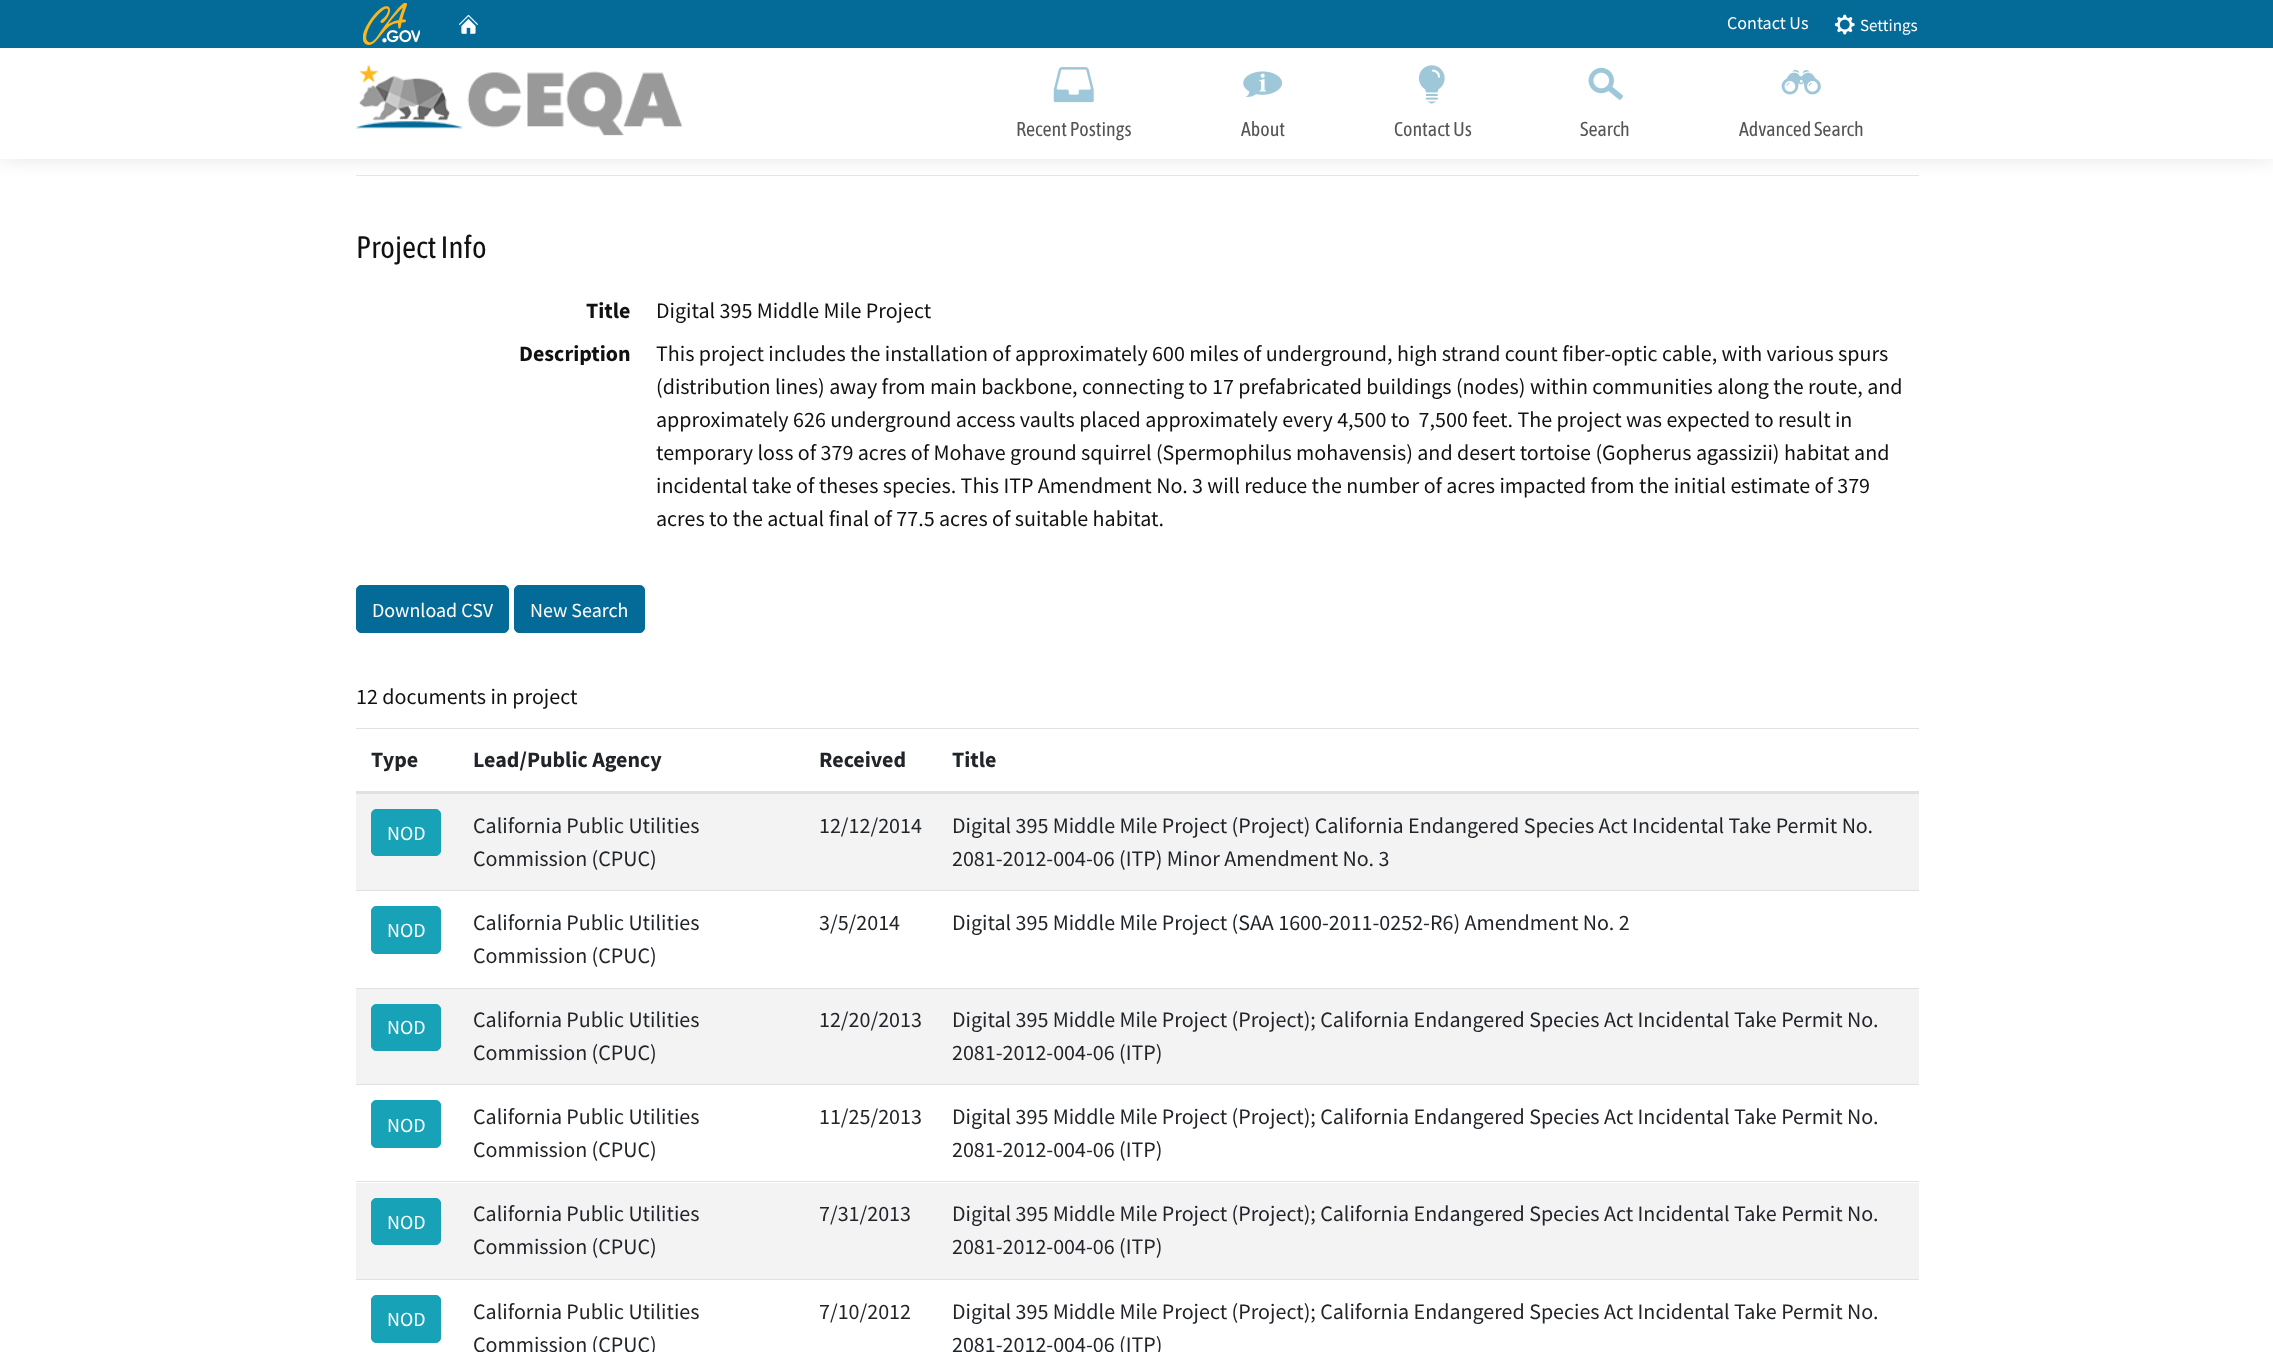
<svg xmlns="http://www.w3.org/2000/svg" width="2273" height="1352">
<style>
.a{font:18px Source Sans Pro;fill:#fff}
.b{font:17px Source Sans Pro;fill:#fff}
.c{font:20px Asap Condensed;fill:#555}
.d{font:31px Asap Condensed;fill:#111}
.e{font:bold 22px Source Sans Pro;fill:#111}
.f{font:22px Source Sans Pro;fill:#111}
.g{font:20px Source Sans Pro;fill:#fff}
.h{font:bold 22px Source Sans Pro;fill:#212529}
.i{font:22px Source Sans Pro;fill:#212529}
</style>
<rect width="100%" height="100%" fill="#fff"/>
<path fill="#e6e6e6" d="M356 175h1563v1H356z"/>
<path fill="#bdbdbd66" filter="blur(9.5px)" d="M0 0h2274v159H0z"/>
<path fill="#fff" d="M0 48h2273v111H0z"/>
<path fill="#046b99" d="M0 0h2273v48H0z"/>
<image href="1.png" x="363" y="3" width="57" height="42"/>
<image href="2.png" x="459" y="14" width="19" height="20"/>
<image href="3.png" x="1834" y="14" width="21" height="21"/>
<image href="4.png" x="356" y="64" width="327" height="72"/>
<image href="5.png" x="1053" y="67" width="41" height="36"/>
<image href="6.png" x="1243" y="71" width="39" height="26"/>
<image href="7.png" x="1418" y="65" width="27" height="39"/>
<image href="8.png" x="1588" y="67" width="35" height="33"/>
<image href="9.png" x="1781" y="69" width="40" height="26"/>
<rect fill="#046b99" stroke="#046b99" x="356.5" y="585.5" width="152" height="47" rx="4.5"/>
<rect fill="#046b99" stroke="#046b99" x="514.5" y="585.5" width="130" height="47" rx="4.5"/>
<path fill="#dee2e6" d="M356 728h1563v1H356z"/>
<path fill="#dee2e6" d="M356 791h1563v3H356z"/>
<path fill="#f3f3f3" d="M356 794h1563v96H356z"/>
<rect fill="#17a2b8" stroke="#17a2b8" x="371.5" y="809.5" width="69" height="46" rx="4.5"/>
<rect fill="#17a2b8" stroke="#17a2b8" x="371.5" y="906.5" width="69" height="47" rx="4.5"/>
<path fill="#dee2e6" d="M356 890h1563v1H356z"/>
<path fill="#f3f3f3" d="M356 989h1563v95H356z"/>
<rect fill="#17a2b8" stroke="#17a2b8" x="371.5" y="1004.5" width="69" height="46" rx="4.5"/>
<path fill="#dee2e6" d="M356 988h1563v1H356z"/>
<rect fill="#17a2b8" stroke="#17a2b8" x="371.5" y="1100.5" width="69" height="47" rx="4.5"/>
<path fill="#dee2e6" d="M356 1084h1563v1H356z"/>
<path fill="#f3f3f3" d="M356 1183h1563v96H356z"/>
<rect fill="#17a2b8" stroke="#17a2b8" x="371.5" y="1198.5" width="69" height="46" rx="4.5"/>
<path fill="#dee2e6" d="M356 1181h1563v1H356z"/>
<rect fill="#17a2b8" stroke="#17a2b8" x="371.5" y="1295.5" width="69" height="47" rx="4.5"/>
<path fill="#dee2e6" d="M356 1279h1563v1H356z"/>
<text class="a" x="1727" y="29">Contact Us</text>
<text class="b" x="1860" y="31">Settings</text>
<text class="c" x="1016" y="136">Recent Postings</text>
<text class="c" x="1241" y="136">About</text>
<text class="c" x="1394" y="136">Contact Us</text>
<text class="c" x="1580" y="136">Search</text>
<text class="c" x="1739" y="136">Advanced Search</text>
<text class="d" x="356" y="258">Project Info</text>
<text class="e" x="586" y="318">Title</text>
<text class="f" x="656" y="318">Digital 395 Middle Mile Project</text>
<text class="e" x="519" y="361">Description</text>
<text class="f" x="656" y="361">This project includes the installation of approximately 600 miles of underground, high strand count fiber-optic cable, with various spurs</text>
<text class="f" x="656" y="394">(distribution lines) away from main backbone, connecting to 17 prefabricated buildings (nodes) within communities along the route, and</text>
<text class="f" xml:space="preserve" x="656" y="427">approximately 626 underground access vaults placed approximately every 4,500 to  7,500 feet. The project was expected to result in</text>
<text class="f" x="656" y="460">temporary loss of 379 acres of Mohave ground squirrel (Spermophilus mohavensis) and desert tortoise (Gopherus agassizii) habitat and</text>
<text class="f" x="656" y="493">incidental take of theses species. This ITP Amendment No. 3 will reduce the number of acres impacted from the initial estimate of 379</text>
<text class="f" x="656" y="526">acres to the actual final of 77.5 acres of suitable habitat.</text>
<text class="g" x="372" y="617">Download CSV</text>
<text class="g" x="530" y="617">New Search</text>
<text class="f" x="356" y="704">12 documents in project</text>
<text class="h" x="371" y="767">Type</text>
<text class="h" x="473" y="767">Lead/Public Agency</text>
<text class="h" x="819" y="767">Received</text>
<text class="h" x="952" y="767">Title</text>
<text class="g" x="387" y="840">NOD</text>
<text class="i" x="473" y="833">California Public Utilities</text>
<text class="i" x="473" y="866">Commission (CPUC)</text>
<text class="i" x="819" y="833">12/12/2014</text>
<text class="i" x="952" y="833">Digital 395 Middle Mile Project (Project) California Endangered Species Act Incidental Take Permit No.</text>
<text class="i" x="952" y="866">2081-2012-004-06 (ITP) Minor Amendment No. 3</text>
<text class="g" x="387" y="937">NOD</text>
<text class="i" x="473" y="930">California Public Utilities</text>
<text class="i" x="473" y="963">Commission (CPUC)</text>
<text class="i" x="819" y="930">3/5/2014</text>
<text class="i" x="952" y="930">Digital 395 Middle Mile Project (SAA 1600-2011-0252-R6) Amendment No. 2</text>
<text class="g" x="387" y="1034">NOD</text>
<text class="i" x="473" y="1027">California Public Utilities</text>
<text class="i" x="473" y="1060">Commission (CPUC)</text>
<text class="i" x="819" y="1027">12/20/2013</text>
<text class="i" x="952" y="1027">Digital 395 Middle Mile Project (Project); California Endangered Species Act Incidental Take Permit No.</text>
<text class="i" x="952" y="1060">2081-2012-004-06 (ITP)</text>
<text class="g" x="387" y="1132">NOD</text>
<text class="i" x="473" y="1124">California Public Utilities</text>
<text class="i" x="473" y="1157">Commission (CPUC)</text>
<text class="i" x="819" y="1124">11/25/2013</text>
<text class="i" x="952" y="1124">Digital 395 Middle Mile Project (Project); California Endangered Species Act Incidental Take Permit No.</text>
<text class="i" x="952" y="1157">2081-2012-004-06 (ITP)</text>
<text class="g" x="387" y="1229">NOD</text>
<text class="i" x="473" y="1221">California Public Utilities</text>
<text class="i" x="473" y="1254">Commission (CPUC)</text>
<text class="i" x="819" y="1221">7/31/2013</text>
<text class="i" x="952" y="1221">Digital 395 Middle Mile Project (Project); California Endangered Species Act Incidental Take Permit No.</text>
<text class="i" x="952" y="1254">2081-2012-004-06 (ITP)</text>
<text class="g" x="387" y="1326">NOD</text>
<text class="i" x="473" y="1319">California Public Utilities</text>
<text class="i" x="473" y="1352">Commission (CPUC)</text>
<text class="i" x="819" y="1319">7/10/2012</text>
<text class="i" x="952" y="1319">Digital 395 Middle Mile Project (Project); California Endangered Species Act Incidental Take Permit No.</text>
<text class="i" x="952" y="1352">2081-2012-004-06 (ITP)</text>
</svg>
